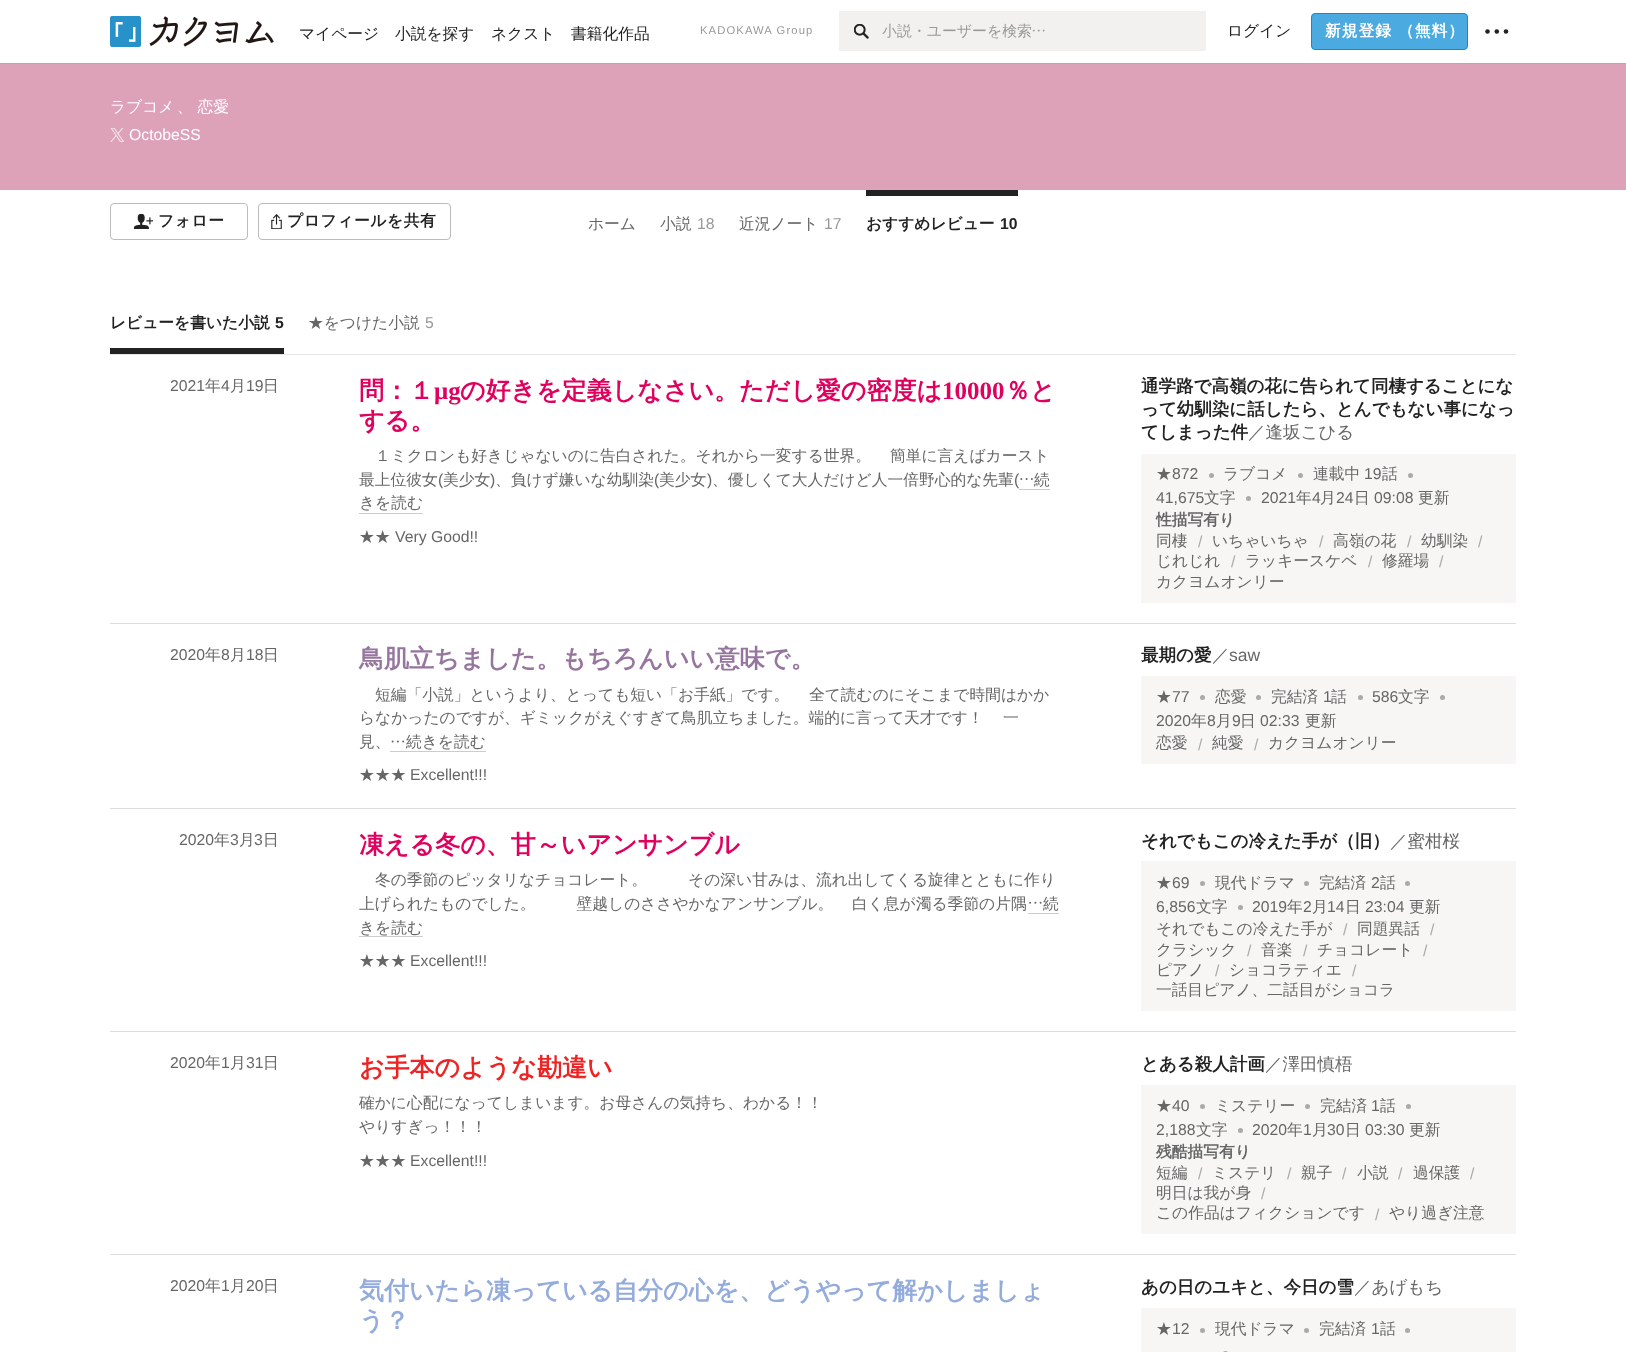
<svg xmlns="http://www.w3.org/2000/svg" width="1626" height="1352">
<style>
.a{font:500 15.75px WenQuanYi Zen Hei;fill:#222}
.b{font:11.25px Liberation Sans;letter-spacing:1.1px;fill:#999}
.c{font:500 14.9px WenQuanYi Zen Hei;fill:#999}
.d{font:bold 15.75px WenQuanYi Zen Hei;letter-spacing:1px;fill:#fff}
.e{font:500 15.75px WenQuanYi Zen Hei;fill:#fff}
.f{font:15.75px Liberation Sans;fill:#fff}
.g{font:bold 15.75px WenQuanYi Zen Hei;letter-spacing:0.6px;fill:#222}
.h{font:500 15.75px WenQuanYi Zen Hei;fill:#666}
.i{font:15.75px Liberation Sans;fill:#999}
.j{font:bold 15.75px WenQuanYi Zen Hei;fill:#222}
.k{font:bold 15.75px Liberation Sans;fill:#222}
.l{font:15.75px Liberation Sans;fill:#666}
.m{font:bold 25px WenQuanYi Zen Hei;fill:#e0005e}
.n{font:bold 25px Liberation Serif;fill:#e0005e}
.o{font:bold 17.5px WenQuanYi Zen Hei;fill:#222}
.p{font:500 17.5px WenQuanYi Zen Hei;fill:#666}
.q{font:bold 15.75px WenQuanYi Zen Hei;fill:#666}
.r{font:15.75px Liberation Sans;fill:#aaa}
.s{font:bold 25px WenQuanYi Zen Hei;fill:#96769f}
.t{font:17.5px Liberation Sans;fill:#666}
.u{font:bold 25px WenQuanYi Zen Hei;fill:#ee2323}
.v{font:bold 25px WenQuanYi Zen Hei;fill:#93acdc}
</style>
<rect width="100%" height="100%" fill="#fff"/>
<path fill="#d39aaf" d="M0 63h1626v1H0z"/>
<image href="1.png" x="110" y="16" width="164" height="31"/>
<path fill="#f2f1f0" d="M839 11h367v40H839z"/>
<image href="2.png" x="854" y="24" width="15" height="15"/>
<image href="3.png" x="1032" y="29" width="13" height="3"/>
<rect fill="#4baae0" stroke="#0990cc" x="1311.5" y="13.5" width="156" height="36" rx="3.5"/>
<circle fill="#222" cx="1487.5" cy="31.5" r="2.3"/>
<circle fill="#222" cx="1496.8" cy="31.5" r="2.3"/>
<circle fill="#222" cx="1506" cy="31.5" r="2.3"/>
<path fill="#dea2b8" d="M0 64h1626v126H0z"/>
<image href="4.png" x="110" y="128" width="14" height="14"/>
<rect fill="none" stroke="#bbb" x="110.5" y="203.5" width="137" height="36" rx="3.5"/>
<image href="5.png" x="134" y="214" width="19" height="15"/>
<rect fill="none" stroke="#bbb" x="258.5" y="203.5" width="192" height="36" rx="3.5"/>
<image href="6.png" x="271" y="214" width="11" height="15"/>
<path fill="#222" d="M866 190h152v6H866z"/>
<path fill="#e6e6e6" d="M110 354h1406v1H110z"/>
<path fill="#222" d="M110 348h174v6H110z"/>
<path fill="#ddd" d="M110 623h1406v1H110z"/>
<image href="7.png" x="1020" y="478" width="13" height="2"/>
<path fill="#ccc" d="M1019 489h31v1H1019z"/>
<path fill="#ccc" d="M359 513h64v1H359z"/>
<path fill="#f7f6f5" d="M1141 454h375v149H1141z"/>
<circle fill="#aaa" cx="1211.5" cy="475.5" r="2.5"/>
<circle fill="#aaa" cx="1300.5" cy="475.5" r="2.5"/>
<circle fill="#aaa" cx="1410.5" cy="475.5" r="2.5"/>
<circle fill="#aaa" cx="1248.5" cy="498.5" r="2.5"/>
<path fill="#ddd" d="M110 808h1406v1H110z"/>
<image href="8.png" x="391" y="740" width="14" height="3"/>
<path fill="#ccc" d="M390 751h96v1H390z"/>
<path fill="#f7f6f5" d="M1141 676h375v88H1141z"/>
<circle fill="#aaa" cx="1202.5" cy="697.5" r="2.5"/>
<circle fill="#aaa" cx="1258.5" cy="697.5" r="2.5"/>
<circle fill="#aaa" cx="1360.5" cy="697.5" r="2.5"/>
<circle fill="#aaa" cx="1442.5" cy="697.5" r="2.5"/>
<path fill="#ddd" d="M110 1031h1406v1H110z"/>
<image href="9.png" x="1029" y="901" width="13" height="3"/>
<path fill="#ccc" d="M1028 913h31v1H1028z"/>
<path fill="#ccc" d="M359 936h64v1H359z"/>
<path fill="#f7f6f5" d="M1141 861h375v150H1141z"/>
<circle fill="#aaa" cx="1202.5" cy="883.5" r="2.5"/>
<circle fill="#aaa" cx="1306.5" cy="883.5" r="2.5"/>
<circle fill="#aaa" cx="1407.5" cy="883.5" r="2.5"/>
<circle fill="#aaa" cx="1240.5" cy="907.5" r="2.5"/>
<path fill="#ddd" d="M110 1254h1406v1H110z"/>
<path fill="#f7f6f5" d="M1141 1085h375v149H1141z"/>
<circle fill="#aaa" cx="1202.5" cy="1106.5" r="2.5"/>
<circle fill="#aaa" cx="1307.5" cy="1106.5" r="2.5"/>
<circle fill="#aaa" cx="1408.5" cy="1106.5" r="2.5"/>
<circle fill="#aaa" cx="1240.5" cy="1130.5" r="2.5"/>
<path fill="#f7f6f5" d="M1141 1308h375v44H1141z"/>
<circle fill="#aaa" cx="1202.5" cy="1330.5" r="2.5"/>
<circle fill="#aaa" cx="1306.5" cy="1330.5" r="2.5"/>
<circle fill="#aaa" cx="1407.5" cy="1330.5" r="2.5"/>
<rect fill="#aaa" x="1223" y="1351" width="5" height="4" rx="2.5"/>
<text class="a" x="299" y="39">マイページ</text>
<text class="a" x="395" y="39">小説を探す</text>
<text class="a" x="491" y="39">ネクスト</text>
<text class="a" x="571" y="39">書籍化作品</text>
<text class="b" x="700" y="34">KADOKAWA Group</text>
<text class="c" x="882" y="36">小説・ユーザーを検索</text>
<text class="a" x="1227" y="36">ログイン</text>
<text class="d" x="1325" y="36">新規登録</text>
<text class="d" x="1398" y="36">（無料）</text>
<text class="e" x="110" y="112">ラブコメ</text>
<text class="e" x="177" y="112">、 恋愛</text>
<text class="f" x="129" y="140">OctobeSS</text>
<text class="g" x="158" y="226">フォロー</text>
<text class="g" x="287" y="226">プロフィールを共有</text>
<text class="h" x="588" y="229">ホーム</text>
<text class="h" x="660" y="229">小説</text>
<text class="i" x="697" y="229">18</text>
<text class="h" x="739" y="229">近況ノート</text>
<text class="i" x="824" y="229">17</text>
<text class="j" x="866" y="229">おすすめレビュー</text>
<text class="k" x="1000" y="229">10</text>
<text class="j" x="110" y="328">レビューを書いた小説</text>
<text class="k" x="275" y="328">5</text>
<text class="h" x="308" y="328">★をつけた小説</text>
<text class="i" x="425" y="328">5</text>
<text class="l" x="170" y="391">2021</text>
<text class="h" x="205" y="391">年</text>
<text class="l" x="221" y="391">4</text>
<text class="h" x="230" y="391">月</text>
<text class="l" x="246" y="391">19</text>
<text class="h" x="263" y="391">日</text>
<text class="m" x="359" y="399">問：１</text>
<text class="n" x="434" y="399">μg</text>
<text class="m" x="460" y="399">の好きを定義しなさい。ただし愛の密度は</text>
<text class="n" x="942" y="399">10000</text>
<text class="m" x="1005" y="399">％と</text>
<text class="m" x="359" y="429">する。</text>
<text class="h" x="375" y="461">１ミクロンも好きじゃないのに告白された。それから一変する世界。</text>
<text class="h" x="890" y="461">簡単に言えばカースト</text>
<text class="h" x="359" y="485">最上位彼女</text>
<text class="l" x="438" y="485">(</text>
<text class="h" x="443" y="485">美少女</text>
<text class="l" x="490" y="485">)</text>
<text class="h" x="495" y="485">、負けず嫌いな幼馴染</text>
<text class="l" x="654" y="485">(</text>
<text class="h" x="659" y="485">美少女</text>
<text class="l" x="707" y="485">)</text>
<text class="h" x="712" y="485">、優しくて大人だけど人一倍野心的な先輩</text>
<text class="l" x="1014" y="485">(</text>
<text class="h" x="1034" y="485">続</text>
<text class="h" x="359" y="508">きを読む</text>
<text class="h" x="359" y="542">★★</text>
<text class="l" x="395" y="542">Very Good!!</text>
<text class="o" x="1141" y="392">通学路で高嶺の花に告られて同棲することにな</text>
<text class="o" x="1141" y="415">って幼馴染に話したら、とんでもない事になっ</text>
<text class="o" x="1141" y="438">てしまった件</text>
<text class="p" x="1248" y="438">／逢坂こひる</text>
<text class="h" x="1156" y="479">★</text>
<text class="l" x="1172" y="479">872</text>
<text class="h" x="1223" y="479">ラブコメ</text>
<text class="h" x="1313" y="479">連載中</text>
<text class="l" x="1364" y="479">19</text>
<text class="h" x="1382" y="479">話</text>
<text class="l" x="1156" y="503">41,675</text>
<text class="h" x="1204" y="503">文字</text>
<text class="l" x="1261" y="503">2021</text>
<text class="h" x="1296" y="503">年</text>
<text class="l" x="1312" y="503">4</text>
<text class="h" x="1320" y="503">月</text>
<text class="l" x="1336" y="503">24</text>
<text class="h" x="1354" y="503">日</text>
<text class="l" x="1374" y="503">09:08</text>
<text class="h" x="1418" y="503">更新</text>
<text class="q" x="1156" y="525">性描写有り</text>
<text class="h" x="1156" y="546">同棲</text>
<text class="r" x="1198" y="547">/</text>
<text class="h" x="1212" y="546">いちゃいちゃ</text>
<text class="r" x="1319" y="547">/</text>
<text class="h" x="1333" y="546">高嶺の花</text>
<text class="r" x="1407" y="547">/</text>
<text class="h" x="1421" y="546">幼馴染</text>
<text class="r" x="1478" y="547">/</text>
<text class="h" x="1156" y="566">じれじれ</text>
<text class="r" x="1231" y="567">/</text>
<text class="h" x="1245" y="566">ラッキースケベ</text>
<text class="r" x="1368" y="567">/</text>
<text class="h" x="1382" y="566">修羅場</text>
<text class="r" x="1439" y="567">/</text>
<text class="h" x="1156" y="587">カクヨムオンリー</text>
<text class="l" x="170" y="660">2020</text>
<text class="h" x="205" y="660">年</text>
<text class="l" x="221" y="660">8</text>
<text class="h" x="230" y="660">月</text>
<text class="l" x="246" y="660">18</text>
<text class="h" x="263" y="660">日</text>
<text class="s" x="359" y="667">鳥肌立ちました。もちろんいい意味で。</text>
<text class="h" x="375" y="700">短編「小説」というより、とっても短い「お手紙」です。</text>
<text class="h" x="809" y="700">全て読むのにそこまで時間はかか</text>
<text class="h" x="359" y="723">らなかったのですが、ギミックがえぐすぎて鳥肌立ちました。端的に言って天才です！</text>
<text class="h" x="1003" y="723">一</text>
<text class="h" x="359" y="747">見、</text>
<text class="h" x="406" y="747">続きを読む</text>
<text class="h" x="359" y="780">★★★</text>
<text class="l" x="410" y="780">Excellent!!!</text>
<text class="o" x="1141" y="661">最期の愛</text>
<text class="p" x="1212" y="661">／</text>
<text class="t" x="1229" y="661">saw</text>
<text class="h" x="1156" y="702">★</text>
<text class="l" x="1172" y="702">77</text>
<text class="h" x="1215" y="702">恋愛</text>
<text class="h" x="1271" y="702">完結済</text>
<text class="l" x="1323" y="702">1</text>
<text class="h" x="1331" y="702">話</text>
<text class="l" x="1372" y="702">586</text>
<text class="h" x="1398" y="702">文字</text>
<text class="l" x="1156" y="726">2020</text>
<text class="h" x="1191" y="726">年</text>
<text class="l" x="1207" y="726">8</text>
<text class="h" x="1216" y="726">月</text>
<text class="l" x="1232" y="726">9</text>
<text class="h" x="1240" y="726">日</text>
<text class="l" x="1260" y="726">02:33</text>
<text class="h" x="1305" y="726">更新</text>
<text class="h" x="1156" y="748">恋愛</text>
<text class="r" x="1198" y="750">/</text>
<text class="h" x="1212" y="748">純愛</text>
<text class="r" x="1254" y="750">/</text>
<text class="h" x="1268" y="748">カクヨムオンリー</text>
<text class="l" x="179" y="845">2020</text>
<text class="h" x="214" y="845">年</text>
<text class="l" x="230" y="845">3</text>
<text class="h" x="239" y="845">月</text>
<text class="l" x="254" y="845">3</text>
<text class="h" x="263" y="845">日</text>
<text class="m" x="359" y="853">凍える冬の、甘～いアンサンブル</text>
<text class="h" x="375" y="885">冬の季節のピッタリなチョコレート。 　 　その深い甘みは、流れ出してくる旋律とともに作り</text>
<text class="h" x="359" y="909">上げられたものでした。 　 　壁越しのささやかなアンサンブル。</text>
<text class="h" x="852" y="909">白く息が濁る季節の片隅</text>
<text class="h" x="1043" y="909">続</text>
<text class="h" x="359" y="933">きを読む</text>
<text class="h" x="359" y="966">★★★</text>
<text class="l" x="410" y="966">Excellent!!!</text>
<text class="o" x="1141" y="847">それでもこの冷えた手が（旧）</text>
<text class="p" x="1390" y="847">／蜜柑桜</text>
<text class="h" x="1156" y="888">★</text>
<text class="l" x="1172" y="888">69</text>
<text class="h" x="1215" y="888">現代ドラマ</text>
<text class="h" x="1319" y="888">完結済</text>
<text class="l" x="1371" y="888">2</text>
<text class="h" x="1380" y="888">話</text>
<text class="l" x="1156" y="912">6,856</text>
<text class="h" x="1196" y="912">文字</text>
<text class="l" x="1252" y="912">2019</text>
<text class="h" x="1287" y="912">年</text>
<text class="l" x="1303" y="912">2</text>
<text class="h" x="1312" y="912">月</text>
<text class="l" x="1327" y="912">14</text>
<text class="h" x="1345" y="912">日</text>
<text class="l" x="1365" y="912">23:04</text>
<text class="h" x="1409" y="912">更新</text>
<text class="h" x="1156" y="934">それでもこの冷えた手が</text>
<text class="r" x="1343" y="935">/</text>
<text class="h" x="1357" y="934">同題異話</text>
<text class="r" x="1430" y="935">/</text>
<text class="h" x="1156" y="955">クラシック</text>
<text class="r" x="1247" y="956">/</text>
<text class="h" x="1261" y="955">音楽</text>
<text class="r" x="1303" y="956">/</text>
<text class="h" x="1317" y="955">チョコレート</text>
<text class="r" x="1423" y="956">/</text>
<text class="h" x="1156" y="975">ピアノ</text>
<text class="r" x="1215" y="976">/</text>
<text class="h" x="1229" y="975">ショコラティエ</text>
<text class="r" x="1352" y="976">/</text>
<text class="h" x="1156" y="995">一話目ピアノ、二話目がショコラ</text>
<text class="l" x="170" y="1068">2020</text>
<text class="h" x="205" y="1068">年</text>
<text class="l" x="221" y="1068">1</text>
<text class="h" x="230" y="1068">月</text>
<text class="l" x="246" y="1068">31</text>
<text class="h" x="263" y="1068">日</text>
<text class="u" x="359" y="1076">お手本のような勘違い</text>
<text class="h" x="359" y="1108">確かに心配になってしまいます。お母さんの気持ち、わかる！！</text>
<text class="h" x="359" y="1132">やりすぎっ！！！</text>
<text class="h" x="359" y="1166">★★★</text>
<text class="l" x="410" y="1166">Excellent!!!</text>
<text class="o" x="1141" y="1070">とある殺人計画</text>
<text class="p" x="1265" y="1070">／澤田慎梧</text>
<text class="h" x="1156" y="1111">★</text>
<text class="l" x="1172" y="1111">40</text>
<text class="h" x="1215" y="1111">ミステリー</text>
<text class="h" x="1320" y="1111">完結済</text>
<text class="l" x="1371" y="1111">1</text>
<text class="h" x="1380" y="1111">話</text>
<text class="l" x="1156" y="1135">2,188</text>
<text class="h" x="1196" y="1135">文字</text>
<text class="l" x="1252" y="1135">2020</text>
<text class="h" x="1287" y="1135">年</text>
<text class="l" x="1303" y="1135">1</text>
<text class="h" x="1312" y="1135">月</text>
<text class="l" x="1327" y="1135">30</text>
<text class="h" x="1345" y="1135">日</text>
<text class="l" x="1365" y="1135">03:30</text>
<text class="h" x="1409" y="1135">更新</text>
<text class="q" x="1156" y="1157">残酷描写有り</text>
<text class="h" x="1156" y="1178">短編</text>
<text class="r" x="1198" y="1179">/</text>
<text class="h" x="1212" y="1178">ミステリ</text>
<text class="r" x="1287" y="1179">/</text>
<text class="h" x="1301" y="1178">親子</text>
<text class="r" x="1342" y="1179">/</text>
<text class="h" x="1357" y="1178">小説</text>
<text class="r" x="1398" y="1179">/</text>
<text class="h" x="1413" y="1178">過保護</text>
<text class="r" x="1470" y="1179">/</text>
<text class="h" x="1156" y="1198">明日は我が身</text>
<text class="r" x="1261" y="1199">/</text>
<text class="h" x="1156" y="1218">この作品はフィクションです</text>
<text class="r" x="1375" y="1220">/</text>
<text class="h" x="1389" y="1218">やり過ぎ注意</text>
<text class="l" x="170" y="1291">2020</text>
<text class="h" x="205" y="1291">年</text>
<text class="l" x="221" y="1291">1</text>
<text class="h" x="230" y="1291">月</text>
<text class="l" x="246" y="1291">20</text>
<text class="h" x="263" y="1291">日</text>
<text class="v" x="359" y="1299">気付いたら凍っている自分の心を、どうやって解かしましょ</text>
<text class="v" x="359" y="1329">う？</text>
<text class="o" x="1141" y="1293">あの日のユキと、今日の雪</text>
<text class="p" x="1354" y="1293">／あげもち</text>
<text class="h" x="1156" y="1334">★</text>
<text class="l" x="1172" y="1334">12</text>
<text class="h" x="1215" y="1334">現代ドラマ</text>
<text class="h" x="1319" y="1334">完結済</text>
<text class="l" x="1371" y="1334">1</text>
<text class="h" x="1380" y="1334">話</text>
</svg>
